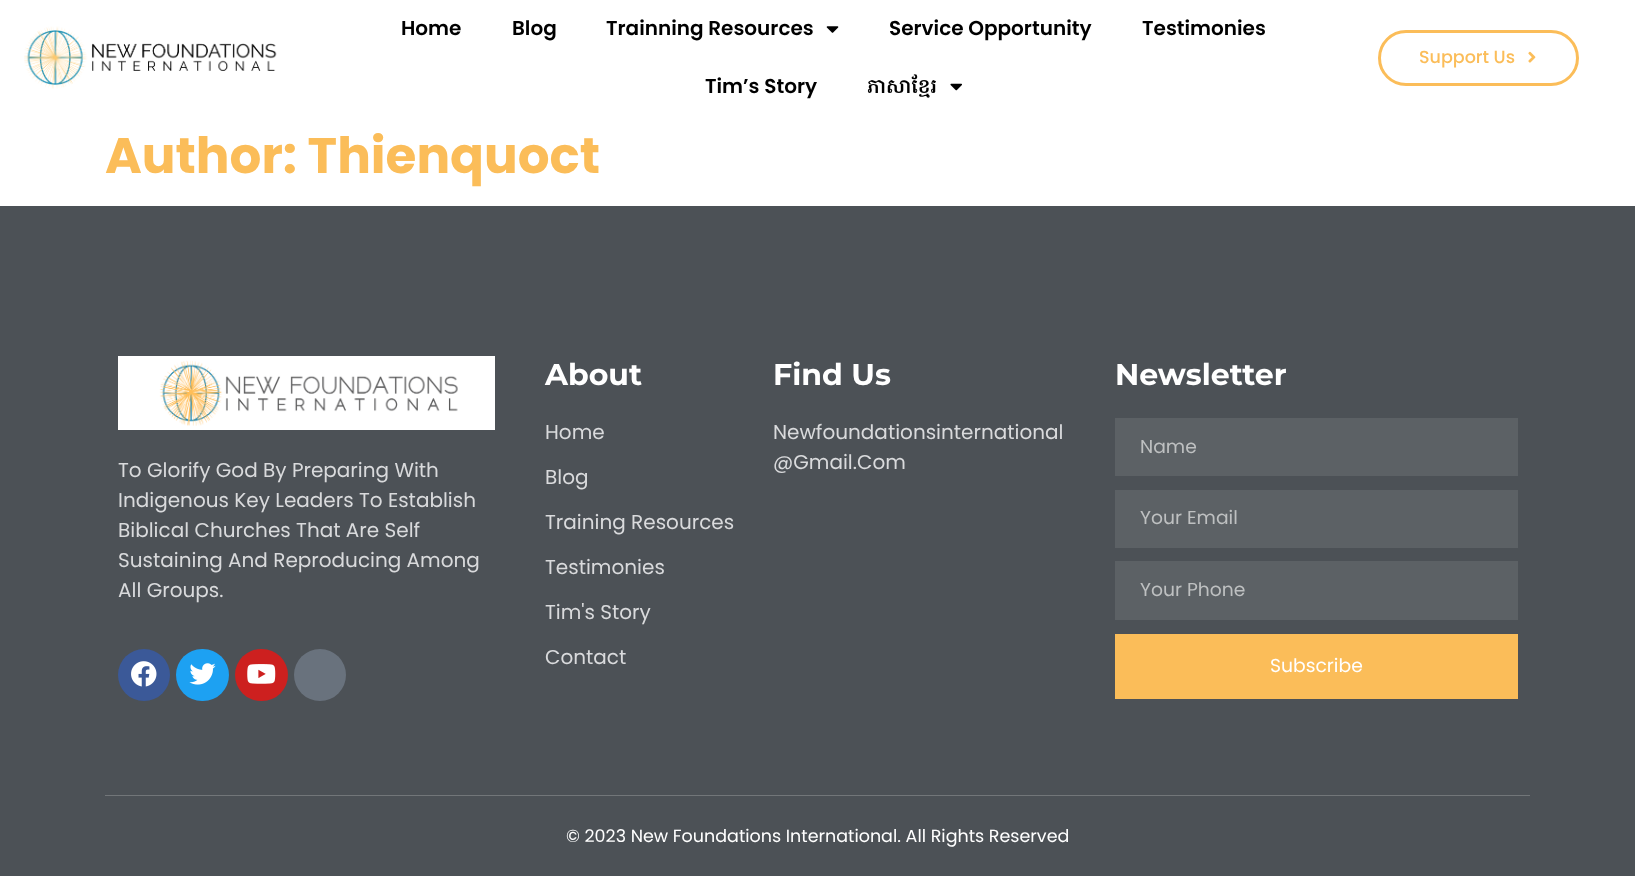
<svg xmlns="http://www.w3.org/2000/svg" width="1635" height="892">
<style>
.a{font:600 20px Poppins;fill:#000}
.b{font:600 20px Hanuman;fill:#000}
.c{font:500 17.5px Poppins;fill:#fbbd59}
.d{font:bold 50px Poppins;fill:#fbbd59}
.e{font:20px Poppins;fill:#d9dadc}
.f{font:bold 30px Montserrat;fill:#fff}
.g{font:18.75px Poppins;fill:#bec0c1}
.h{font:18.75px Poppins;fill:#fff}
.i{font:17.5px Poppins;fill:#fff}
</style>
<rect width="100%" height="100%" fill="#fff"/>
<image href="1.png" x="24" y="26" width="253" height="63"/>
<image href="2.png" x="826" y="26" width="13" height="7"/>
<image href="3.png" x="950" y="83" width="12" height="8"/>
<rect fill="none" stroke="#fbbd59" stroke-width="3" x="1379.5" y="31.5" width="198" height="53" rx="26.5"/>
<image href="4.png" x="1528" y="51" width="8" height="12"/>
<path fill="#4c5156" d="M0 206h1635v670H0z"/>
<path fill="#fff" d="M118 356h377v74H118z"/>
<image href="5.png" x="159" y="360" width="299" height="66"/>
<circle fill="#3b5998" cx="144" cy="675" r="26"/>
<image href="6.png" x="131" y="661" width="26" height="26"/>
<rect fill="#1da1f2" x="176" y="649" width="53" height="52" rx="26"/>
<image href="7.png" x="189" y="663" width="27" height="22"/>
<rect fill="#cd201f" x="235" y="649" width="53" height="52" rx="26"/>
<image href="8.png" x="247" y="664" width="29" height="20"/>
<circle fill="#69727d" cx="320" cy="675" r="26"/>
<path fill="#5c6165" d="M1115 418h403v58H1115z"/>
<path fill="#5c6165" d="M1115 490h403v58H1115z"/>
<path fill="#5c6165" d="M1115 561h403v59H1115z"/>
<path fill="#fbbd59" d="M1115 634h403v65H1115z"/>
<path fill="#727679" d="M105 795h1425v1H105z"/>
<text class="a" x="401" y="35">Home</text>
<text class="a" x="512" y="35">Blog</text>
<text class="a" x="606" y="35">Trainning Resources</text>
<text class="a" x="889" y="35">Service Opportunity</text>
<text class="a" x="1142" y="35">Testimonies</text>
<text class="a" x="705" y="93">Tim’s Story</text>
<text class="b" x="867" y="93">ភាសាខ្មែរ</text>
<text class="c" x="1419" y="63">Support Us</text>
<text class="d" x="105" y="173">Author: Thienquoct</text>
<text class="e" x="118" y="477">To Glorify God By Preparing With</text>
<text class="e" x="118" y="507">Indigenous Key Leaders To Establish</text>
<text class="e" x="118" y="537">Biblical Churches That Are Self</text>
<text class="e" x="118" y="567">Sustaining And Reproducing Among</text>
<text class="e" x="118" y="597">All Groups.</text>
<text class="f" x="545" y="385">About</text>
<text class="e" x="545" y="439">Home</text>
<text class="e" x="545" y="484">Blog</text>
<text class="e" x="545" y="529">Training Resources</text>
<text class="e" x="545" y="574">Testimonies</text>
<text class="e" x="545" y="619">Tim's Story</text>
<text class="e" x="545" y="664">Contact</text>
<text class="f" x="773" y="385">Find Us</text>
<text class="e" x="773" y="439">Newfoundationsinternational</text>
<text class="e" x="773" y="469">@Gmail.Com</text>
<text class="f" x="1115" y="385">Newsletter</text>
<text class="g" x="1140" y="453">Name</text>
<text class="g" x="1140" y="524">Your Email</text>
<text class="g" x="1140" y="596">Your Phone</text>
<text class="h" x="1270" y="672">Subscribe</text>
<text class="i" x="566" y="842">© 2023 New Foundations International. All Rights Reserved</text>
</svg>
